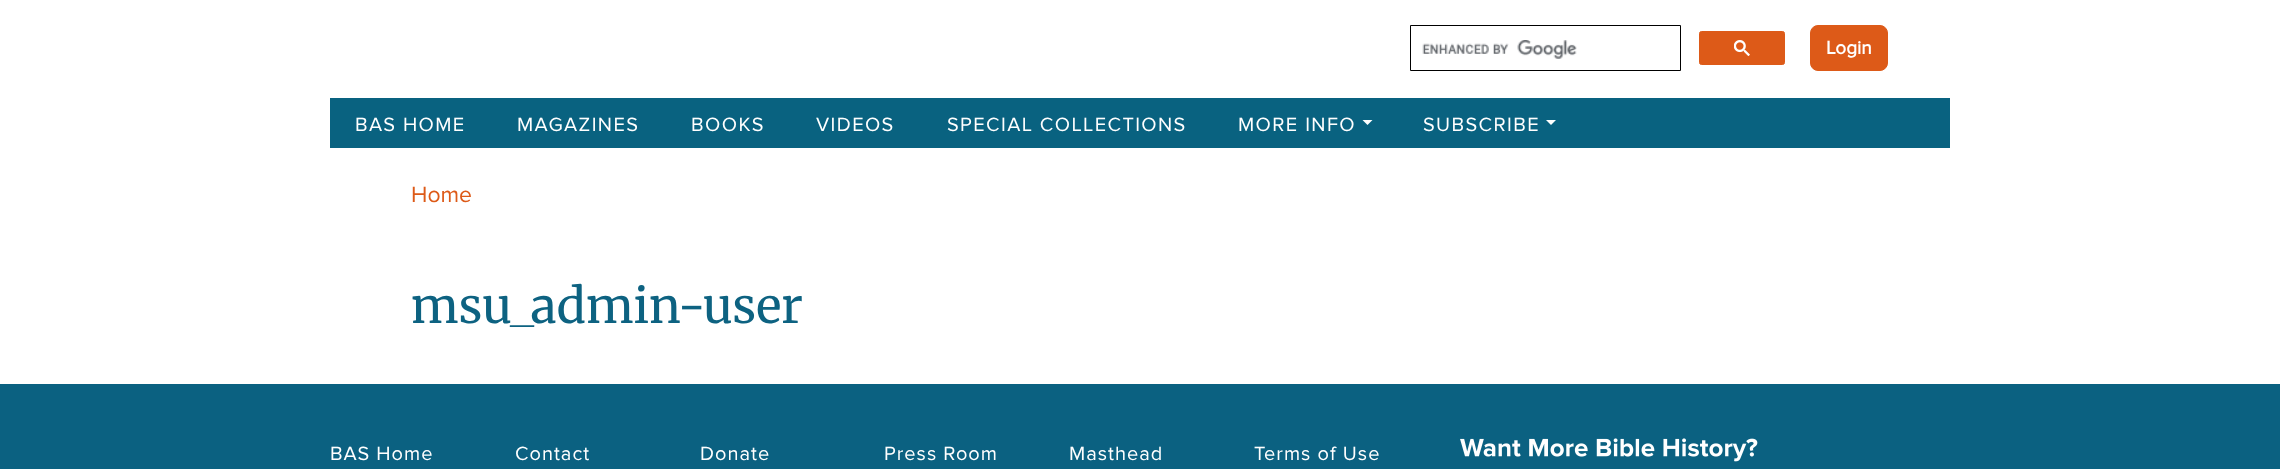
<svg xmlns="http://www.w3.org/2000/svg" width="2280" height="469">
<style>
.a{font:bold 19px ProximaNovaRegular;fill:#fff}
.b{font:20px ProximaNovaRegular;letter-spacing:1.4px;fill:#fff}
.c{font:23px ProximaNovaRegular;fill:#dd5a18}
.d{font:48px Merriweather;fill:#0d6281}
.e{font:20px ProximaNovaRegular;letter-spacing:1px;fill:#fff}
</style>
<rect width="100%" height="100%" fill="#fff"/>
<path fill="none" stroke="#000" d="M1410.5 25.5h270v45H1410.5z"/>
<image href="1.png" x="1422" y="40" width="155" height="19"/>
<rect fill="#dd5a18" stroke="#dd5a18" x="1699.5" y="31.5" width="85" height="33" rx="2"/>
<image href="2.png" x="1734" y="40" width="16" height="16"/>
<rect fill="#dd5a18" stroke="#dd5a18" x="1810.5" y="25.5" width="77" height="45" rx="7.5"/>
<path fill="#096280" d="M330 98h1620v50H330z"/>
<path fill="#fff" d="M1362.5 120h10l-5 5z"/>
<path fill="#fff" d="M1546 120h10l-5 5z"/>
<path fill="#0b6181" d="M0 384h2280v85H0z"/>
<image href="3.png" x="1460" y="438" width="298" height="24"/>
<text class="a" x="1826" y="54">Login</text>
<text class="b" x="355" y="131">BAS HOME</text>
<text class="b" x="517" y="131">MAGAZINES</text>
<text class="b" x="691" y="131">BOOKS</text>
<text class="b" x="816" y="131">VIDEOS</text>
<text class="b" x="947" y="131">SPECIAL COLLECTIONS</text>
<text class="b" x="1238" y="131">MORE INFO</text>
<text class="b" x="1423" y="131">SUBSCRIBE</text>
<text class="c" x="411" y="202">Home</text>
<text class="d" x="411" y="323">msu_admin-user</text>
<text class="e" x="330" y="460">BAS Home</text>
<text class="e" x="515" y="460">Contact</text>
<text class="e" x="700" y="460">Donate</text>
<text class="e" x="884" y="460">Press Room</text>
<text class="e" x="1069" y="460">Masthead</text>
<text class="e" x="1254" y="460">Terms of Use</text>
</svg>
